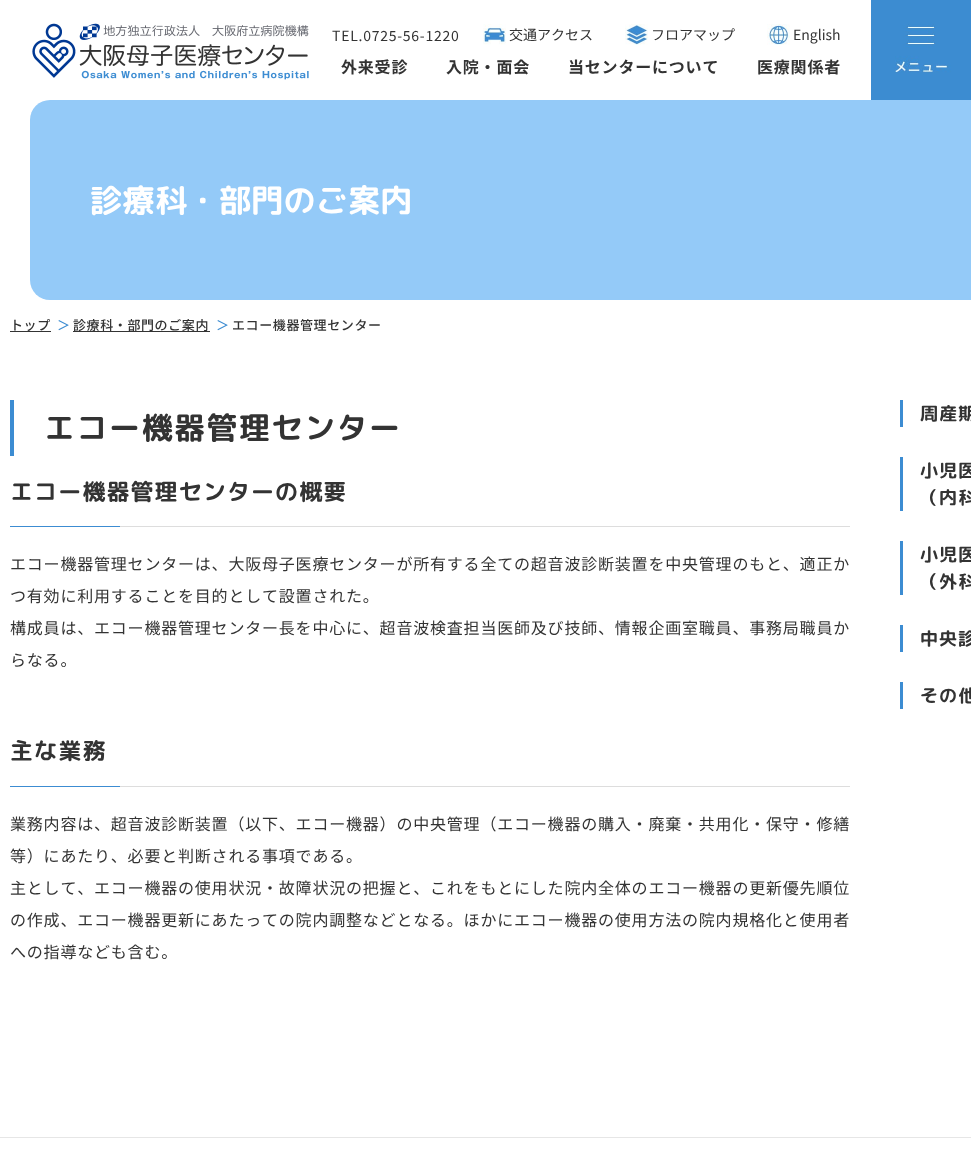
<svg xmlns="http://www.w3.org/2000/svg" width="971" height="1164">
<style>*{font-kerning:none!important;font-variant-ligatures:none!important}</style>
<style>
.a{font:14px Noto Sans JP;letter-spacing:0.75px;fill:#333}
.b{font:14px Noto Sans JP;fill:#333}
.c{font:bold 16px Noto Sans JP;letter-spacing:0.8px;fill:#333}
.d{font:bold 32px 'Rounded Mplus 1c Bold';letter-spacing:0.25px;fill:#fff}
.e{font:500 13px Noto Sans JP;letter-spacing:0.6px;fill:#333}
.f{font:500 13px Noto Sans JP;letter-spacing:0.6px;fill:#3c8cd2}
.g{font:bold 31px 'Rounded Mplus 1c Bold';letter-spacing:1.5px;fill:#333}
.h{font:bold 23px 'Rounded Mplus 1c Bold';letter-spacing:1.1px;fill:#333}
.i{font:16px Noto Sans JP;letter-spacing:0.8px;fill:#333}
.j{font:bold 18px 'Rounded Mplus 1c Bold';letter-spacing:1px;fill:#333}
</style>
<rect width="100%" height="100%" fill="#fff"/>
<image href="1.png" x="32" y="23" width="277" height="57"/>
<image href="2.png" x="483" y="24" width="23" height="21"/>
<image href="3.png" x="625" y="24" width="23" height="21"/>
<image href="4.png" x="767" y="24" width="23" height="21"/>
<image href="5.png" x="871" y="0" width="100" height="100"/>
<image href="6.png" x="30" y="100" width="941" height="200"/>
<path fill="#333" d="M10 331h41v1H10z"/>
<path fill="#333" d="M73 331h137v1H73z"/>
<path fill="#3c8cd2" d="M10 400h4v56H10z"/>
<path fill="#ddd" d="M120 526h730v1H120z"/>
<path fill="#3c8cd2" d="M10 526h110v1H10z"/>
<path fill="#ddd" d="M120 786h730v1H120z"/>
<path fill="#3c8cd2" d="M10 786h110v1H10z"/>
<path fill="#3c8cd2" d="M900 400h3v27H900z"/>
<path fill="#3c8cd2" d="M900 457h3v54H900z"/>
<path fill="#3c8cd2" d="M900 541h3v54H900z"/>
<path fill="#3c8cd2" d="M900 625h3v27H900z"/>
<path fill="#3c8cd2" d="M900 682h3v27H900z"/>
<path fill="#e6e6e6" d="M0 1137h971v1H0z"/>
<text class="a" x="332" y="41">TEL.0725-56-1220</text>
<text class="b" x="509" y="40">交通アクセス</text>
<text class="b" x="651" y="40">フロアマップ</text>
<text class="b" x="793" y="40">English</text>
<text class="c" x="341" y="73">外来受診</text>
<text class="c" x="446" y="73">入院・面会</text>
<text class="c" x="568" y="73">当センターについて</text>
<text class="c" x="757" y="73">医療関係者</text>
<text class="d" x="90" y="212">診療科・部門のご案内</text>
<text class="e" x="10" y="330">トップ</text>
<text class="f" x="57" y="330">＞</text>
<text class="e" x="73" y="330">診療科・部門のご案内</text>
<text class="f" x="216" y="330">＞</text>
<text class="e" x="232" y="330">エコー機器管理センター</text>
<text class="g" x="44" y="439">エコー機器管理センター</text>
<text class="h" x="10" y="500">エコー機器管理センターの概要</text>
<text class="i" x="10" y="570">エコー機器管理センターは、大阪母子医療センターが所有する全ての超音波診断装置を中央管理のもと、適正か</text>
<text class="i" x="10" y="602">つ有効に利用することを目的として設置された。</text>
<text class="i" x="10" y="634">構成員は、エコー機器管理センター長を中心に、超音波検査担当医師及び技師、情報企画室職員、事務局職員か</text>
<text class="i" x="10" y="666">らなる。</text>
<text class="h" x="10" y="759">主な業務</text>
<text class="i" x="10" y="830">業務内容は、超音波診断装置（以下、エコー機器）の中央管理（エコー機器の購入・廃棄・共用化・保守・修繕</text>
<text class="i" x="10" y="862">等）にあたり、必要と判断される事項である。</text>
<text class="i" x="10" y="894">主として、エコー機器の使用状況・故障状況の把握と、これをもとにした院内全体のエコー機器の更新優先順位</text>
<text class="i" x="10" y="926">の作成、エコー機器更新にあたっての院内調整などとなる。ほかにエコー機器の使用方法の院内規格化と使用者</text>
<text class="i" x="10" y="958">への指導なども含む。</text>
<text class="j" x="920" y="420">周産期</text>
<text class="j" x="920" y="477">小児医</text>
<text class="j" x="920" y="504">（内科</text>
<text class="j" x="920" y="561">小児医</text>
<text class="j" x="920" y="588">（外科</text>
<text class="j" x="920" y="645">中央診</text>
<text class="j" x="920" y="702">その他</text>
</svg>
